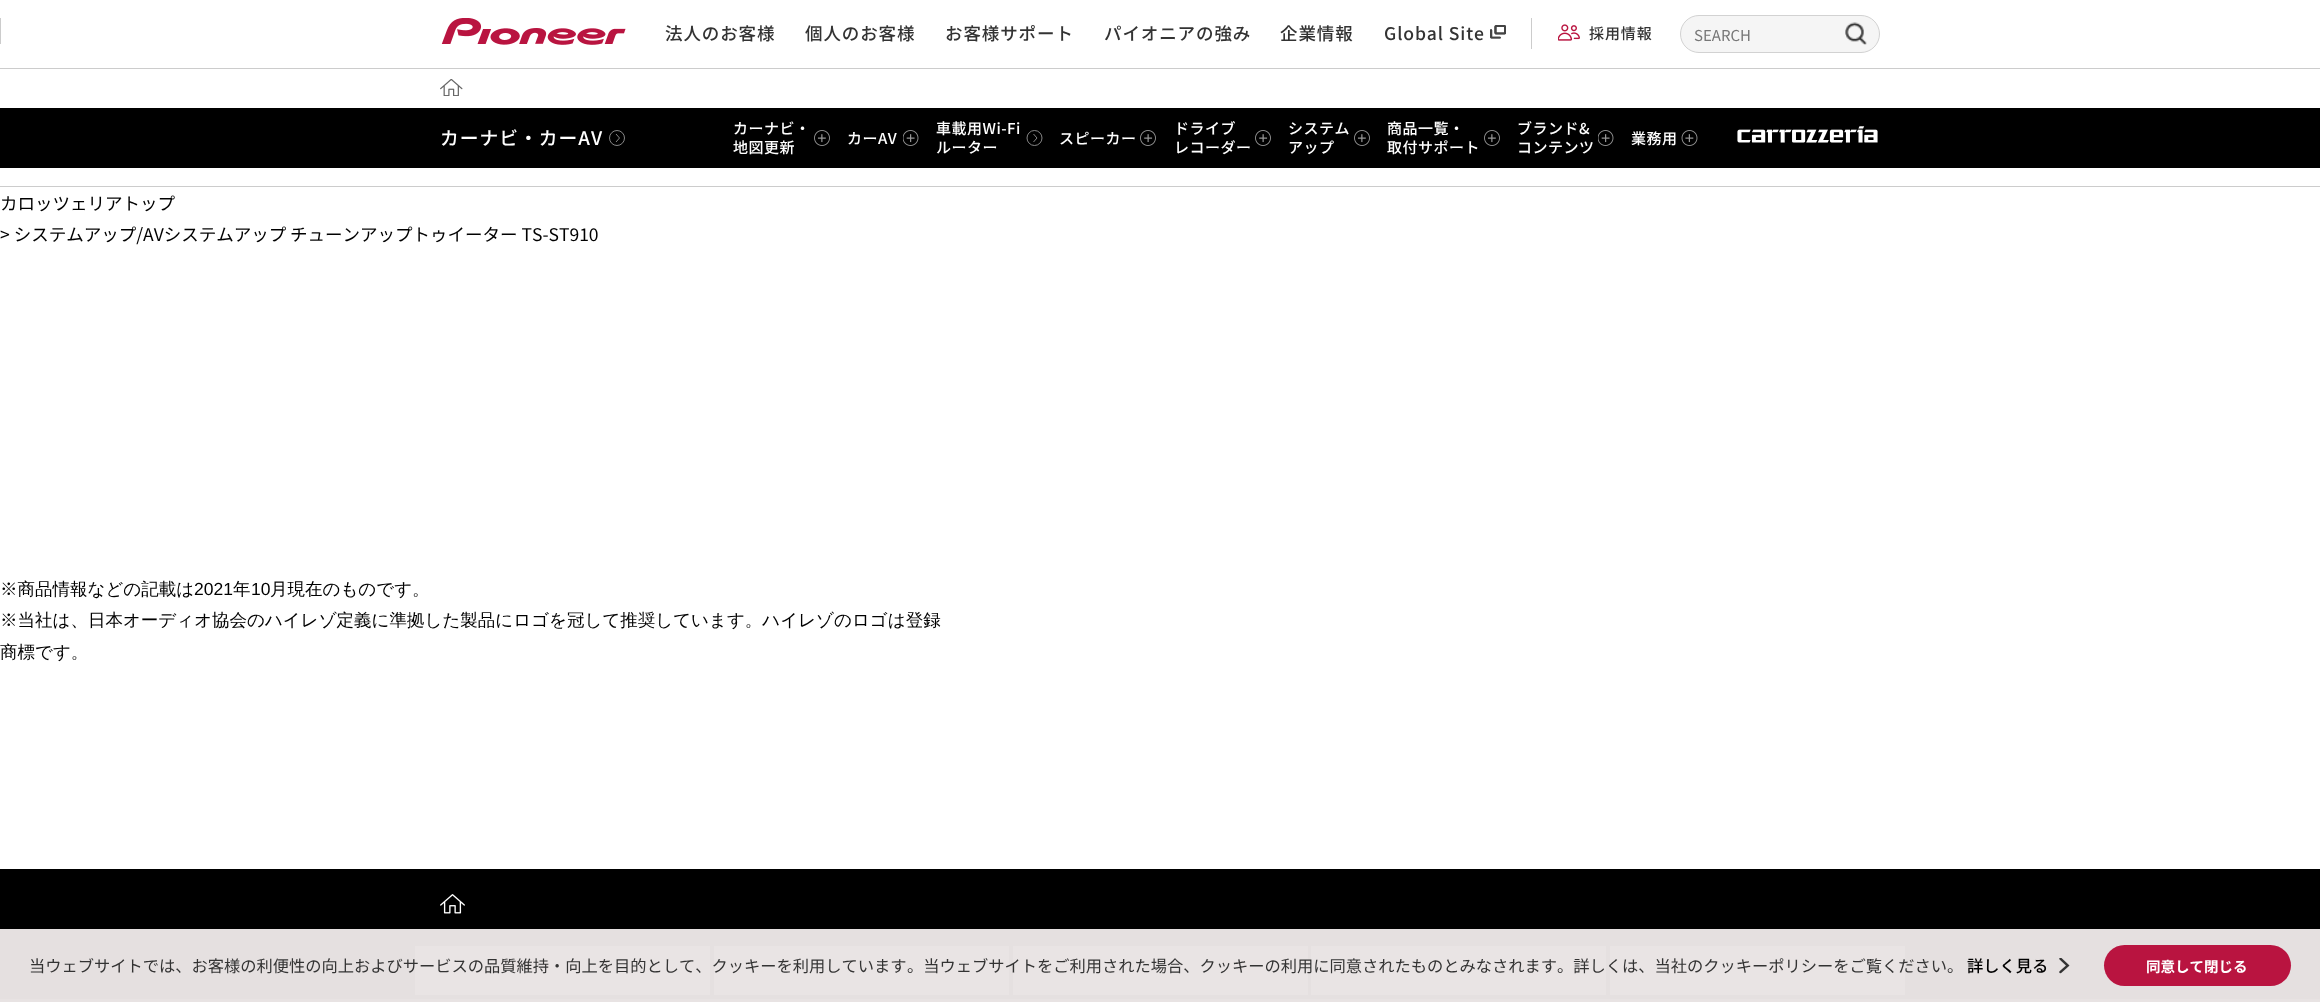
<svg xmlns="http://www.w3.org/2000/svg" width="2320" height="1002">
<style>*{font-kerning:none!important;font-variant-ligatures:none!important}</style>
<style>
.a{font:500 17.5px Noto Sans JP;letter-spacing:0.9px;fill:#333}
.b{font:500 15px Noto Sans JP;letter-spacing:0.9px;fill:#333}
.c{font:15px Noto Sans JP;fill:#777}
.d{font:500 18.75px Noto Sans JP;letter-spacing:1px;fill:#fff}
.e{font:500 15px Noto Sans JP;letter-spacing:0.5px;fill:#fff}
.f{font:17.5px Noto Sans JP;fill:#000}
.g{font:500 17.5px WenQuanYi Zen Hei;fill:#000}
.h{font:17.5px Liberation Sans;fill:#000}
.i{font:16.25px Noto Sans JP;fill:#333}
.j{font:500 16.25px Noto Sans JP;fill:#000}
.k{font:bold 14.5px Noto Sans JP;fill:#fff}
</style>
<rect width="100%" height="100%" fill="#fff"/>
<path fill="#ccc" d="M0 68h2320v1H0z"/>
<image href="1.png" x="441" y="18" width="185" height="27"/>
<image href="2.png" x="1490" y="25" width="16" height="14"/>
<path fill="#ccc" d="M1531 18h1v31H1531z"/>
<path fill="#ccc" d="M0 18h1v26H0z"/>
<image href="3.png" x="1558" y="24" width="22" height="17"/>
<rect fill="#f5f5f5" stroke="#d2d2d2" x="1680.5" y="15.5" width="199" height="37" rx="18.5"/>
<image href="4.png" x="1845" y="22" width="22" height="23"/>
<image href="5.png" x="440" y="79" width="23" height="17"/>
<path fill="#000" d="M0 108h2320v60H0z"/>
<circle fill="none" stroke="#959595" stroke-width="0.9" cx="617" cy="138" r="7.5"/>
<path fill="none" stroke="#959595" stroke-width="0.9" d="M616 134l3.5 4l-3.5 4"/>
<image href="6.png" x="814" y="130" width="16" height="16"/>
<image href="7.png" x="903" y="130" width="16" height="16"/>
<circle fill="none" stroke="#959595" stroke-width="0.9" cx="1034.5" cy="138" r="7.5"/>
<path fill="none" stroke="#959595" stroke-width="0.9" d="M1033.5 134l3.5 4l-3.5 4"/>
<image href="8.png" x="1140" y="130" width="16" height="16"/>
<image href="8.png" x="1255" y="130" width="16" height="16"/>
<image href="6.png" x="1354" y="130" width="16" height="16"/>
<image href="6.png" x="1484" y="130" width="16" height="16"/>
<image href="7.png" x="1598" y="130" width="16" height="16"/>
<image href="9.png" x="1681" y="130" width="17" height="16"/>
<image href="10.png" x="1737" y="126" width="141" height="17"/>
<path fill="#ccc" d="M0 186h2320v1H0z"/>
<path fill="#000" d="M0 869h2320v60H0z"/>
<path fill="#e5e0e0" d="M0 929h2320v70H0z"/>
<image href="11.png" x="440" y="894" width="25" height="20"/>
<path fill="#e9e4e4" d="M415 946h295v49H415z"/>
<path fill="#e9e4e4" d="M714 946h295v49H714z"/>
<path fill="#e9e4e4" d="M1013 946h295v49H1013z"/>
<path fill="#e9e4e4" d="M1311 946h295v49H1311z"/>
<path fill="#e9e4e4" d="M1610 946h295v49H1610z"/>
<path fill="#e8e3e3" d="M0 999h2320v3H0z"/>
<image href="12.png" x="2059" y="958" width="11" height="16"/>
<rect fill="#b91440" x="2104" y="945" width="187" height="41" rx="20.5"/>
<text class="a" x="665" y="40">法人のお客様</text>
<text class="a" x="805" y="40">個人のお客様</text>
<text class="a" x="945" y="40">お客様サポート</text>
<text class="a" x="1104" y="40">パイオニアの強み</text>
<text class="a" x="1280" y="40">企業情報</text>
<text class="a" x="1384" y="40">Global Site</text>
<text class="b" x="1589" y="39">採用情報</text>
<text class="c" x="1694" y="41">SEARCH</text>
<text class="d" x="440" y="145">カーナビ・カーAV</text>
<text class="e" x="733" y="134">カーナビ・</text>
<text class="e" x="733" y="153">地図更新</text>
<text class="e" x="847" y="144">カーAV</text>
<text class="e" x="936" y="134">車載用Wi-Fi</text>
<text class="e" x="936" y="153">ルーター</text>
<text class="e" x="1059" y="144">スピーカー</text>
<text class="e" x="1174" y="134">ドライブ</text>
<text class="e" x="1174" y="153">レコーダー</text>
<text class="e" x="1288" y="134">システム</text>
<text class="e" x="1288" y="153">アップ</text>
<text class="e" x="1387" y="134">商品一覧・</text>
<text class="e" x="1387" y="153">取付サポート</text>
<text class="e" x="1517" y="134">ブランド&amp;</text>
<text class="e" x="1517" y="153">コンテンツ</text>
<text class="e" x="1631" y="144">業務用</text>
<text class="f" x="0" y="210">カロッツェリアトップ</text>
<text class="f" x="0" y="241">&gt; システムアップ/AVシステムアップ チューンアップトゥイーター TS-ST910</text>
<text class="g" x="0" y="595">※商品情報などの記載は</text>
<text class="h" x="194" y="595">2021</text>
<text class="g" x="233" y="595">年</text>
<text class="h" x="251" y="595">10</text>
<text class="g" x="270" y="595">月現在のものです。</text>
<text class="g" x="0" y="626">※当社は、日本オーディオ協会のハイレゾ定義に準拠した製品にロゴを冠して推奨しています。ハイレゾのロゴは登録</text>
<text class="g" x="0" y="658">商標です。</text>
<text class="i" x="29" y="972">当ウェブサイトでは、お客様の利便性の向上およびサービスの品質維持・向上を目的として、クッキーを利用しています</text>
<text class="i" x="907" y="972">。当ウェブサイトをご利用された場合、クッキーの利用に同意されたものとみなされます。詳しくは、当社のクッキーポリシーをご覧ください。</text>
<text class="j" x="1967" y="972">詳しく見る</text>
<text class="k" x="2146" y="972">同意して閉じる</text>
</svg>
